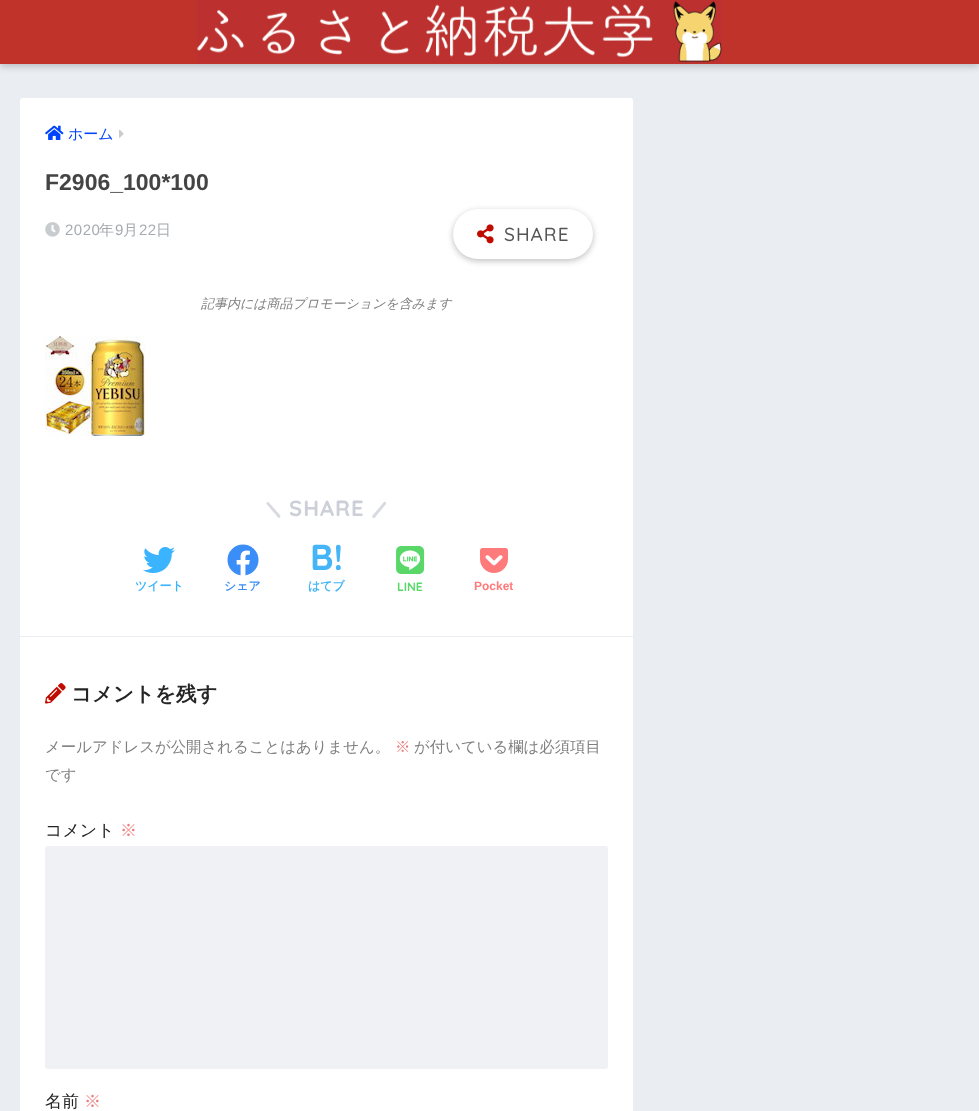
<svg xmlns="http://www.w3.org/2000/svg" width="979" height="1111">
<style>
.a{font:500 15px WenQuanYi Zen Hei;fill:#0043fc}
.b{font:bold 23px Liberation Sans;fill:#444}
.c{font:15px Liberation Sans;letter-spacing:0.5px;fill:#a5aaaf}
.d{font:500 15px WenQuanYi Zen Hei;letter-spacing:0.5px;fill:#a5aaaf}
.e{font:500 19px Quicksand;letter-spacing:1px;fill:#555}
.f{font:italic 500 13px WenQuanYi Zen Hei;fill:#808080}
.g{font:bold 22px Quicksand;letter-spacing:1px;fill:#cccfd7}
.h{font:bold 12px WenQuanYi Zen Hei;fill:#3ab4ff}
.i{font:bold 12px WenQuanYi Zen Hei;fill:#3b8df7}
.j{font:bold 36px Quicksand;fill:#45b5f7}
.k{font:bold 12px WenQuanYi Zen Hei;fill:#45b5f7}
.l{font:bold 12px Quicksand;fill:#59d869}
.m{font:bold 12px Liberation Sans;fill:#ff7b7b}
.n{font:bold 20.5px WenQuanYi Zen Hei;fill:#252525}
.o{font:500 15.4px WenQuanYi Zen Hei;fill:#808080}
.p{font:500 15.4px WenQuanYi Zen Hei;fill:#ee7b7b}
.q{font:500 17px WenQuanYi Zen Hei;fill:#252525}
.r{font:500 17px WenQuanYi Zen Hei;fill:#ee7b7b}
</style>
<rect width="100%" height="100%" fill="#eaedf2"/>
<path fill="#0000002e" filter="blur(3px)" d="M0 3h979v64H0z"/>
<path fill="#bf332b" d="M0 0h979v64H0z"/>
<image href="1.png" x="197" y="0" width="525" height="63"/>
<rect fill="#fff" x="20" y="98" width="613" height="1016" rx="3"/>
<image href="2.png" x="45" y="125" width="19" height="15"/>
<image href="3.png" x="119" y="129" width="5" height="9"/>
<image href="4.png" x="45" y="222" width="15" height="15"/>
<rect fill="#00000040" filter="blur(3px)" x="453" y="211" width="140" height="50" rx="25"/>
<rect fill="#fff" x="453" y="209" width="140" height="50" rx="25"/>
<image href="5.png" x="477" y="224" width="17" height="20"/>
<image href="6.png" x="45" y="336" width="100" height="100"/>
<path fill="#d8dae1" d="M269 502.5l9.5 11c.5 .5 3 2.5 1.5 4c-1.5 1.5-3.5-1.5-4-2.5l-9.5-11c-.5-1.5 1.5-3 2.5-1.5z"/>
<path fill="#d8dae1" d="M372.5 515.5l9.5-11c.5-.5 2-3.5 3.5-2.5c2 1.5-1 3.5-1.5 4.5l-9.5 11.5c-1.5 .5-3-1.5-2-2.5z"/>
<image href="7.png" x="143" y="547" width="32" height="26"/>
<image href="8.png" x="227" y="544" width="32" height="32"/>
<image href="9.png" x="396" y="546" width="29" height="28"/>
<image href="10.png" x="480" y="548" width="28" height="25"/>
<path fill="#eaedf2" d="M20 636h613v1H20z"/>
<image href="11.png" x="45" y="683" width="21" height="21"/>
<rect fill="#eff1f5" x="45" y="846" width="563" height="223" rx="3"/>
<text class="a" x="68" y="139">ホーム</text>
<text class="b" x="45" y="190">F2906_100*100</text>
<text class="c" x="65" y="235">2020</text>
<text class="d" x="99" y="235">年</text>
<text class="c" x="115" y="235">9</text>
<text class="d" x="123" y="235">月</text>
<text class="c" x="139" y="235">22</text>
<text class="d" x="156" y="235">日</text>
<text class="e" x="504" y="241">SHARE</text>
<text class="f" x="201" y="308">記事内には商品プロモーションを含みます</text>
<text class="g" x="289" y="516">SHARE</text>
<text class="h" x="135" y="590">ツイート</text>
<text class="i" x="224" y="590">シェア</text>
<text class="j" x="310" y="570">B!</text>
<text class="k" x="308" y="590">はてブ</text>
<text class="l" x="397" y="591">LINE</text>
<text class="m" x="474" y="590">Pocket</text>
<text class="n" x="71" y="701">コメントを残す</text>
<text class="o" x="45" y="752">メールアドレスが公開されることはありません。</text>
<text class="p" x="395" y="752">※</text>
<text class="o" x="414" y="752">が付いている欄は必須項目</text>
<text class="o" x="45" y="780">です</text>
<text class="q" x="45" y="836">コメント</text>
<text class="r" x="120" y="836">※</text>
<text class="q" x="45" y="1107">名前</text>
<text class="r" x="84" y="1107">※</text>
</svg>
